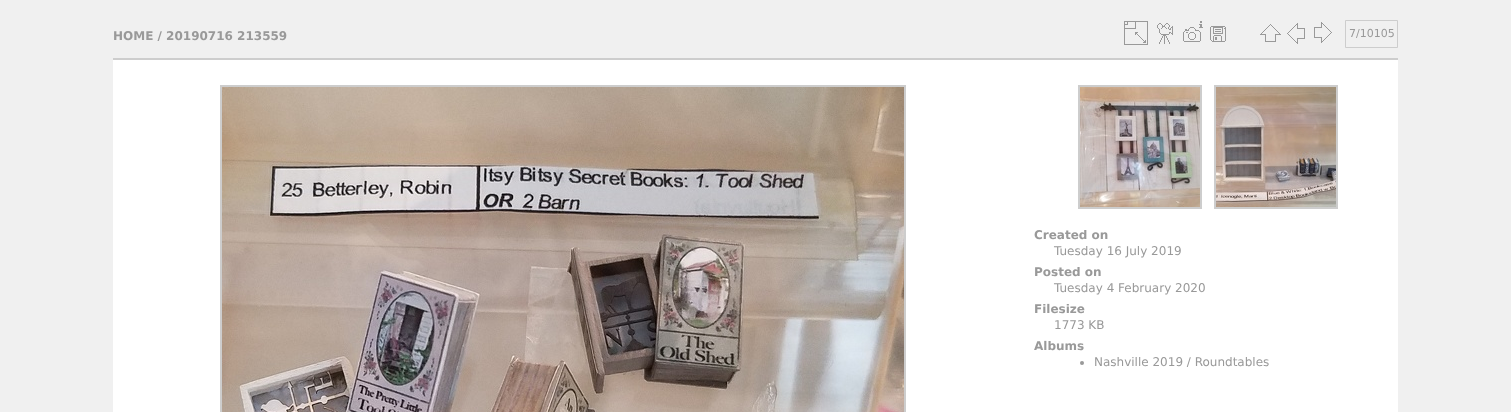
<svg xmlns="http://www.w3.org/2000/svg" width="1511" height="412">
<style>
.a{font:bold 12px DejaVu Sans;fill:#999}
.b{font:11px DejaVu Sans;fill:#999}
.c{font:12px DejaVu Sans;fill:#999}
</style>
<rect width="100%" height="100%" fill="#f0f0f0"/>
<image href="1.png" x="1124" y="21" width="24" height="24"/>
<image href="2.png" x="1157" y="23" width="16" height="21"/>
<image href="3.png" x="1183" y="21" width="20" height="21"/>
<image href="4.png" x="1210" y="26" width="16" height="16"/>
<image href="5.png" x="1260" y="24" width="21" height="18"/>
<image href="6.png" x="1287" y="23" width="18" height="21"/>
<image href="7.png" x="1314" y="22" width="18" height="21"/>
<path fill="none" stroke="#cdcdcd" d="M1345.5 20.5h52v27H1345.5z"/>
<path fill="#fff" d="M113 60h1285v352H113z"/>
<path fill="#cdcdcd" d="M113 58h1285v2H113z"/>
<path fill="none" stroke="#cdcdcd" stroke-width="2" d="M221 86h684v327H221z"/>
<image href="8.png" x="222" y="87" width="682" height="325"/>
<path fill="none" stroke="#cdcdcd" stroke-width="2" d="M1079 86h122v122H1079z"/>
<image href="9.png" x="1080" y="87" width="120" height="120"/>
<path fill="none" stroke="#cdcdcd" stroke-width="2" d="M1215 86h122v122H1215z"/>
<image href="10.png" x="1216" y="87" width="120" height="120"/>
<circle fill="#999" cx="1082" cy="363" r="2"/>
<text class="a" x="113" y="40">HOME / 20190716 213559</text>
<text class="b" x="1349" y="37">7/10105</text>
<text class="a" x="1034" y="239">Created on</text>
<text class="c" x="1054" y="255">Tuesday 16 July 2019</text>
<text class="a" x="1034" y="276">Posted on</text>
<text class="c" x="1054" y="292">Tuesday 4 February 2020</text>
<text class="a" x="1034" y="313">Filesize</text>
<text class="c" x="1054" y="329">1773 KB</text>
<text class="a" x="1034" y="350">Albums</text>
<text class="c" x="1094" y="366">Nashville 2019 / Roundtables</text>
</svg>
